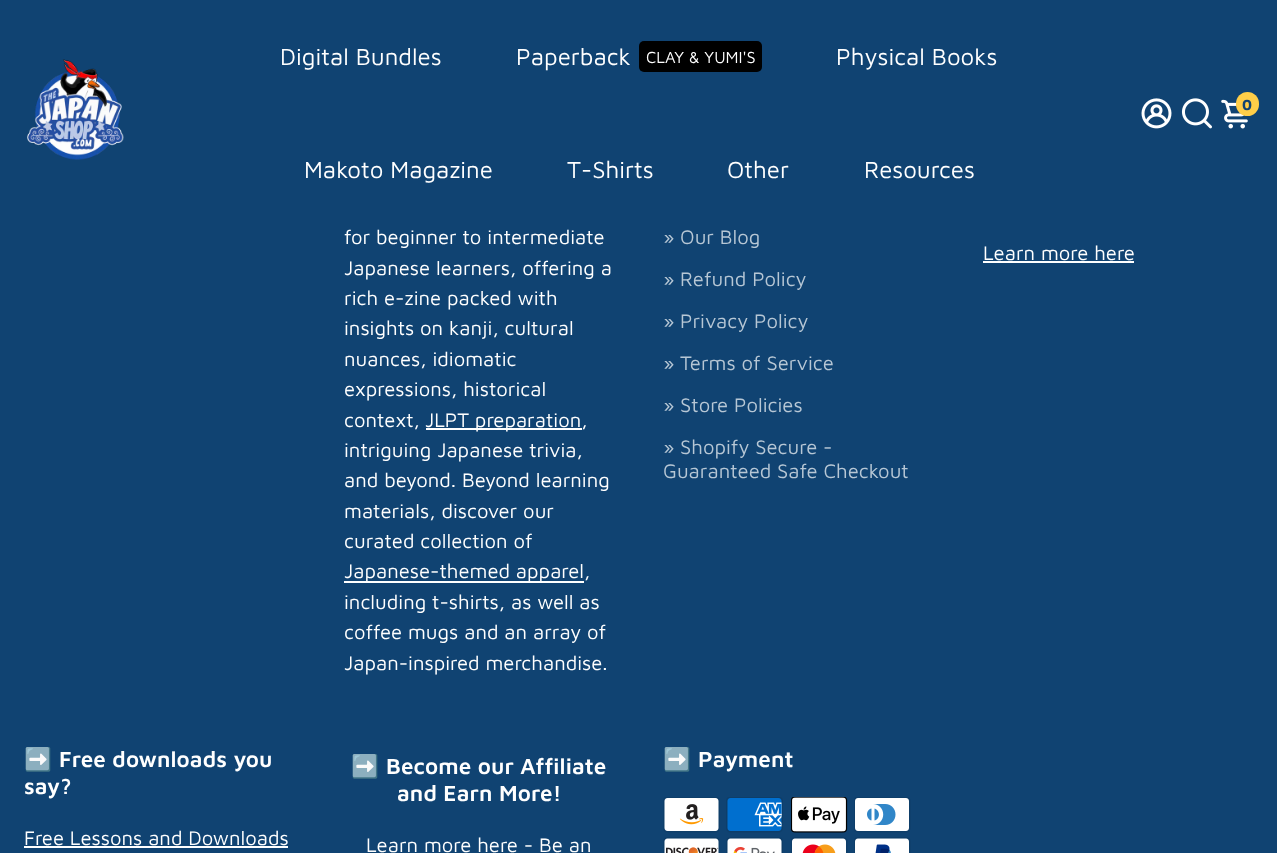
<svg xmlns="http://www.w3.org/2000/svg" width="1277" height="853">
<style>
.a{font:24px Maven Pro;fill:#fff}
.b{font:16.5px Maven Pro;fill:#fff}
.c{font:bold 15px Maven Pro;fill:#104372}
.d{font:20.25px Maven Pro;fill:#fff}
.e{font:20.25px Maven Pro;fill:#b7c7d5}
.f{font:bold 22.5px Noto Color Emoji;letter-spacing:0.1px;fill:#fff}
.g{font:600 22.5px Maven Pro;letter-spacing:0.1px;fill:#fff}
</style>
<rect width="100%" height="100%" fill="#104372"/>
<image href="1.png" x="27" y="59" width="97" height="101"/>
<rect fill="#000" x="639" y="41" width="123" height="31" rx="5"/>
<image href="2.png" x="1141" y="98" width="31" height="31"/>
<image href="3.png" x="1181" y="98" width="31" height="31"/>
<image href="4.png" x="1221" y="99" width="27" height="30"/>
<rect fill="#ffce48" x="1236" y="92" width="23" height="24" rx="11.5"/>
<path fill="#fff" d="M426 428h156v2H426z"/>
<path fill="#fff" d="M344 581h240v2H344z"/>
<path fill="#fff" d="M983 261h151v2H983z"/>
<path fill="#fff" d="M24 846h264v2H24z"/>
<image href="5.png" x="663" y="797" width="57" height="36"/>
<image href="6.png" x="726" y="797" width="57" height="36"/>
<image href="7.png" x="791" y="797" width="57" height="36"/>
<image href="8.png" x="854" y="797" width="57" height="36"/>
<image href="9.png" x="663" y="837" width="57" height="16"/>
<image href="10.png" x="726" y="837" width="57" height="16"/>
<image href="11.png" x="791" y="837" width="57" height="16"/>
<image href="12.png" x="854" y="837" width="57" height="16"/>
<text class="a" x="280" y="65">Digital Bundles</text>
<text class="a" x="516" y="65">Paperback</text>
<text class="b" x="646" y="63">CLAY &amp; YUMI'S</text>
<text class="a" x="836" y="65">Physical Books</text>
<text class="a" x="304" y="178">Makoto Magazine</text>
<text class="a" x="567" y="178">T-Shirts</text>
<text class="a" x="727" y="178">Other</text>
<text class="a" x="864" y="178">Resources</text>
<text class="c" x="1242" y="110">0</text>
<text class="d" x="344" y="244">for beginner to intermediate</text>
<text class="d" x="344" y="275">Japanese learners, offering a</text>
<text class="d" x="344" y="305">rich e-zine packed with</text>
<text class="d" x="344" y="335">insights on kanji, cultural</text>
<text class="d" x="344" y="366">nuances, idiomatic</text>
<text class="d" x="344" y="396">expressions, historical</text>
<text class="d" x="344" y="427">context,</text>
<text class="d" x="425" y="427">JLPT preparation,</text>
<text class="d" x="344" y="457">intriguing Japanese trivia,</text>
<text class="d" x="344" y="487">and beyond. Beyond learning</text>
<text class="d" x="344" y="518">materials, discover our</text>
<text class="d" x="344" y="548">curated collection of</text>
<text class="d" x="344" y="578">Japanese-themed apparel,</text>
<text class="d" x="344" y="609">including t-shirts, as well as</text>
<text class="d" x="344" y="639">coffee mugs and an array of</text>
<text class="d" x="344" y="670">Japan-inspired merchandise.</text>
<text class="e" x="663" y="244">» Our Blog</text>
<text class="e" x="663" y="286">» Refund Policy</text>
<text class="e" x="663" y="328">» Privacy Policy</text>
<text class="e" x="663" y="370">» Terms of Service</text>
<text class="e" x="663" y="412">» Store Policies</text>
<text class="e" x="663" y="454">» Shopify Secure -</text>
<text class="e" x="663" y="478">Guaranteed Safe Checkout</text>
<text class="d" x="983" y="260">Learn more here</text>
<text class="f" x="24" y="767">➡️</text>
<text class="g" x="59" y="767">Free downloads you</text>
<text class="g" x="24" y="794">say?</text>
<text class="d" x="24" y="845">Free Lessons and Downloads</text>
<text class="f" x="351" y="774">➡️</text>
<text class="g" x="386" y="774">Become our Affiliate</text>
<text class="g" x="397" y="801">and Earn More!</text>
<text class="d" x="366" y="852">Learn more here - Be an</text>
<text class="f" x="663" y="767">➡️</text>
<text class="g" x="698" y="767">Payment</text>
</svg>
